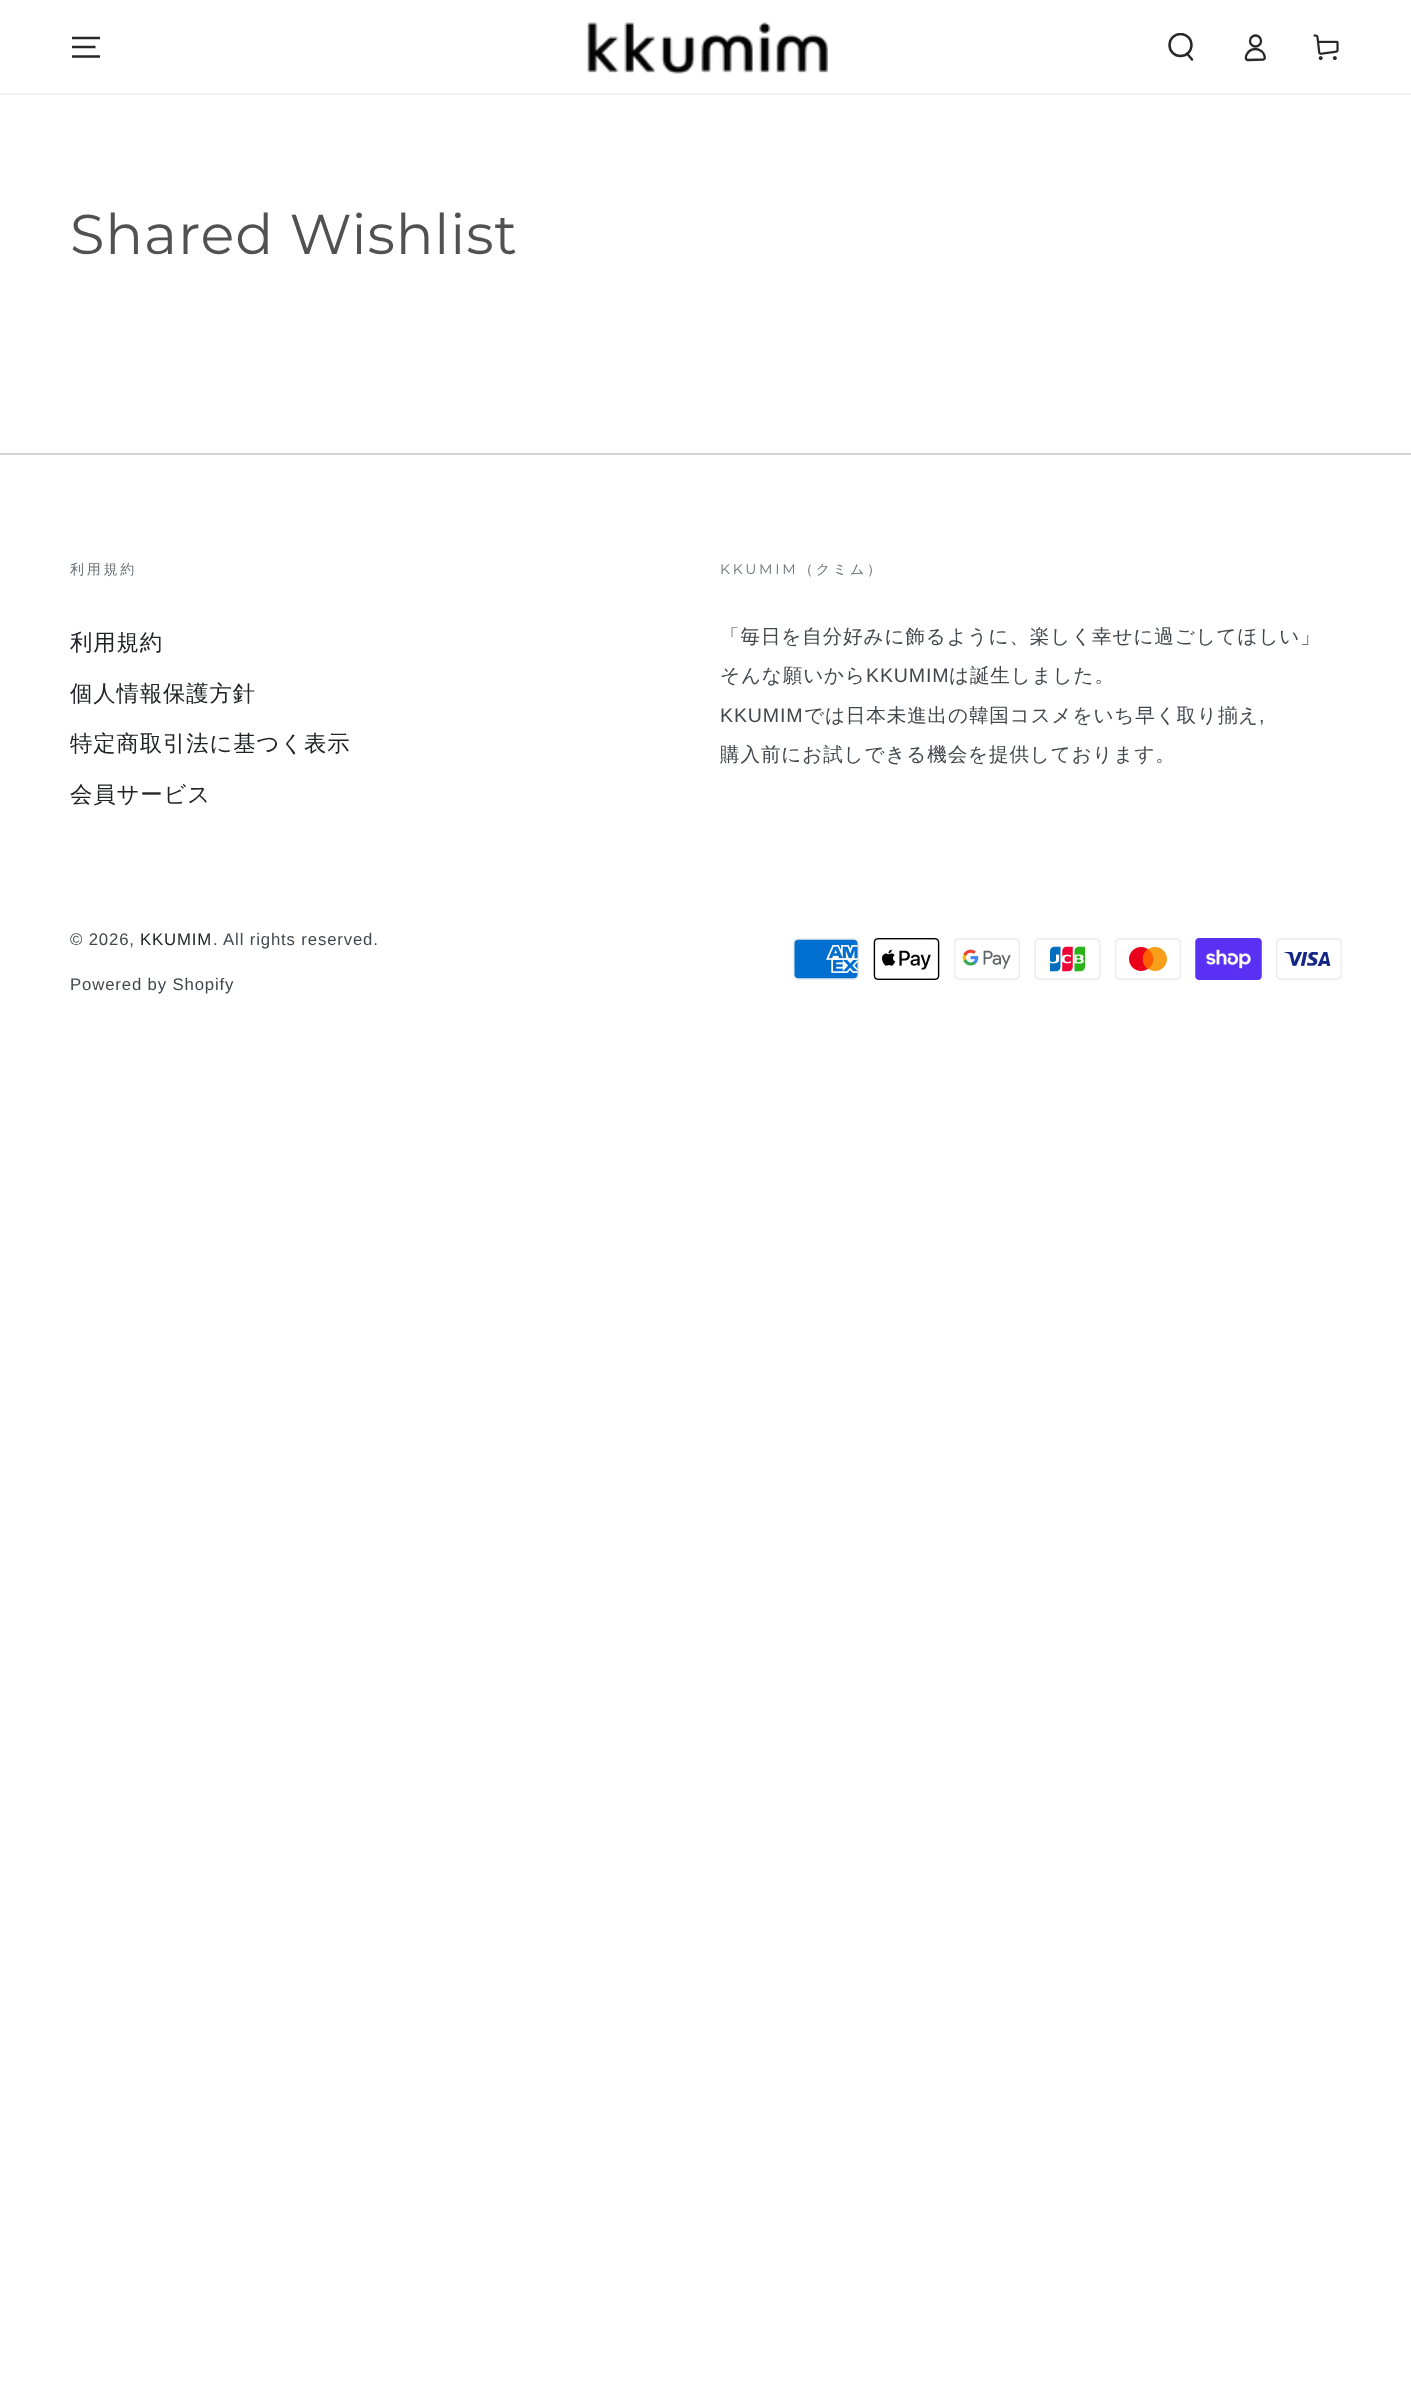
<svg xmlns="http://www.w3.org/2000/svg" width="1411" height="2397">
<style>
.a{font:56px Montserrat;letter-spacing:0.85px;fill:#515151}
.b{font:500 14px WenQuanYi Zen Hei;letter-spacing:2.75px;fill:#6b7177}
.c{font:500 22.4px WenQuanYi Zen Hei;letter-spacing:0.85px;fill:#212326}
.d{font:14px Montserrat;letter-spacing:2.75px;fill:#6b7177}
.e{font:500 19.6px WenQuanYi Zen Hei;letter-spacing:0.85px;fill:#42474c}
.f{font:19.6px Liberation Sans;letter-spacing:0.85px;fill:#42474c}
.g{font:16.75px Liberation Sans;letter-spacing:0.85px;fill:#42474c}
.h{font:16.75px Liberation Sans;letter-spacing:0.85px;fill:#212326}
</style>
<defs>
<clipPath id="clip1"><path d="M1167 33h28v28H1167z"/></clipPath>
</defs>
<rect width="100%" height="100%" fill="#fff"/>
<path fill="#f2f2f4" d="M0 93h1411v2H0z"/>
<path fill="none" stroke="#282828" stroke-width="2.3" d="M72 56.5h28m-28-9.5h23.5m-23.5-9h28"/>
<image href="1.png" x="587" y="22" width="241" height="52"/>
<g clip-path="url(#clip1)">
<circle fill="none" stroke="#282828" stroke-width="2.5" cx="1180.5" cy="45" r="11"/>
</g>
<path fill="none" stroke="#282828" stroke-width="2.5" stroke-linecap="round" d="M1187 53.5l5 6"/>
<path fill="none" stroke="#282828" stroke-width="2.3" d="M1255.5 49c-8.5 0-12.5 11-7.5 11l15.5-.5c3-1 0-6.5-1.5-8c-2-1.5-4.5-2.5-6.5-2.5z"/>
<circle fill="none" stroke="#282828" stroke-width="2.3" cx="1255.5" cy="41" r="5.5"/>
<image href="2.png" x="1313" y="34" width="26" height="27"/>
<path fill="#d2d5d9" d="M0 453h1411v2H0z"/>
<image href="3.png" x="793" y="938" width="66" height="42"/>
<image href="4.png" x="873" y="938" width="67" height="42"/>
<image href="5.png" x="954" y="938" width="66" height="42"/>
<image href="6.png" x="1034" y="938" width="67" height="42"/>
<image href="7.png" x="1115" y="938" width="66" height="42"/>
<image href="8.png" x="1195" y="938" width="67" height="42"/>
<image href="9.png" x="1276" y="938" width="66" height="42"/>
<text class="a" x="70" y="254">Shared Wishlist</text>
<text class="b" x="70" y="574">利用規約</text>
<text class="c" x="70" y="650">利用規約</text>
<text class="c" x="70" y="701">個人情報保護方針</text>
<text class="c" x="70" y="751">特定商取引法に基つく表示</text>
<text class="c" x="70" y="802">会員サービス</text>
<text class="d" x="720" y="574">KKUMIM</text>
<text class="b" x="799" y="574">（クミム）</text>
<text class="e" x="720" y="643">「毎日を自分好みに飾るように、楽しく幸せに過ごしてほしい」</text>
<text class="e" x="720" y="682">そんな願いから</text>
<text class="f" x="866" y="682">KKUMIM</text>
<text class="e" x="949" y="682">は誕生しました。</text>
<text class="f" x="720" y="722">KKUMIM</text>
<text class="e" x="804" y="722">では日本未進出の韓国コスメをいち早く取り揃え</text>
<text class="f" x="1259" y="722">,</text>
<text class="e" x="720" y="761">購入前にお試しできる機会を提供しております。</text>
<text class="g" x="70" y="945">© 2026,</text>
<text class="h" x="140" y="945">KKUMIM</text>
<text class="g" x="213" y="945">. All rights reserved.</text>
<text class="g" x="70" y="990">Powered by Shopify</text>
</svg>
